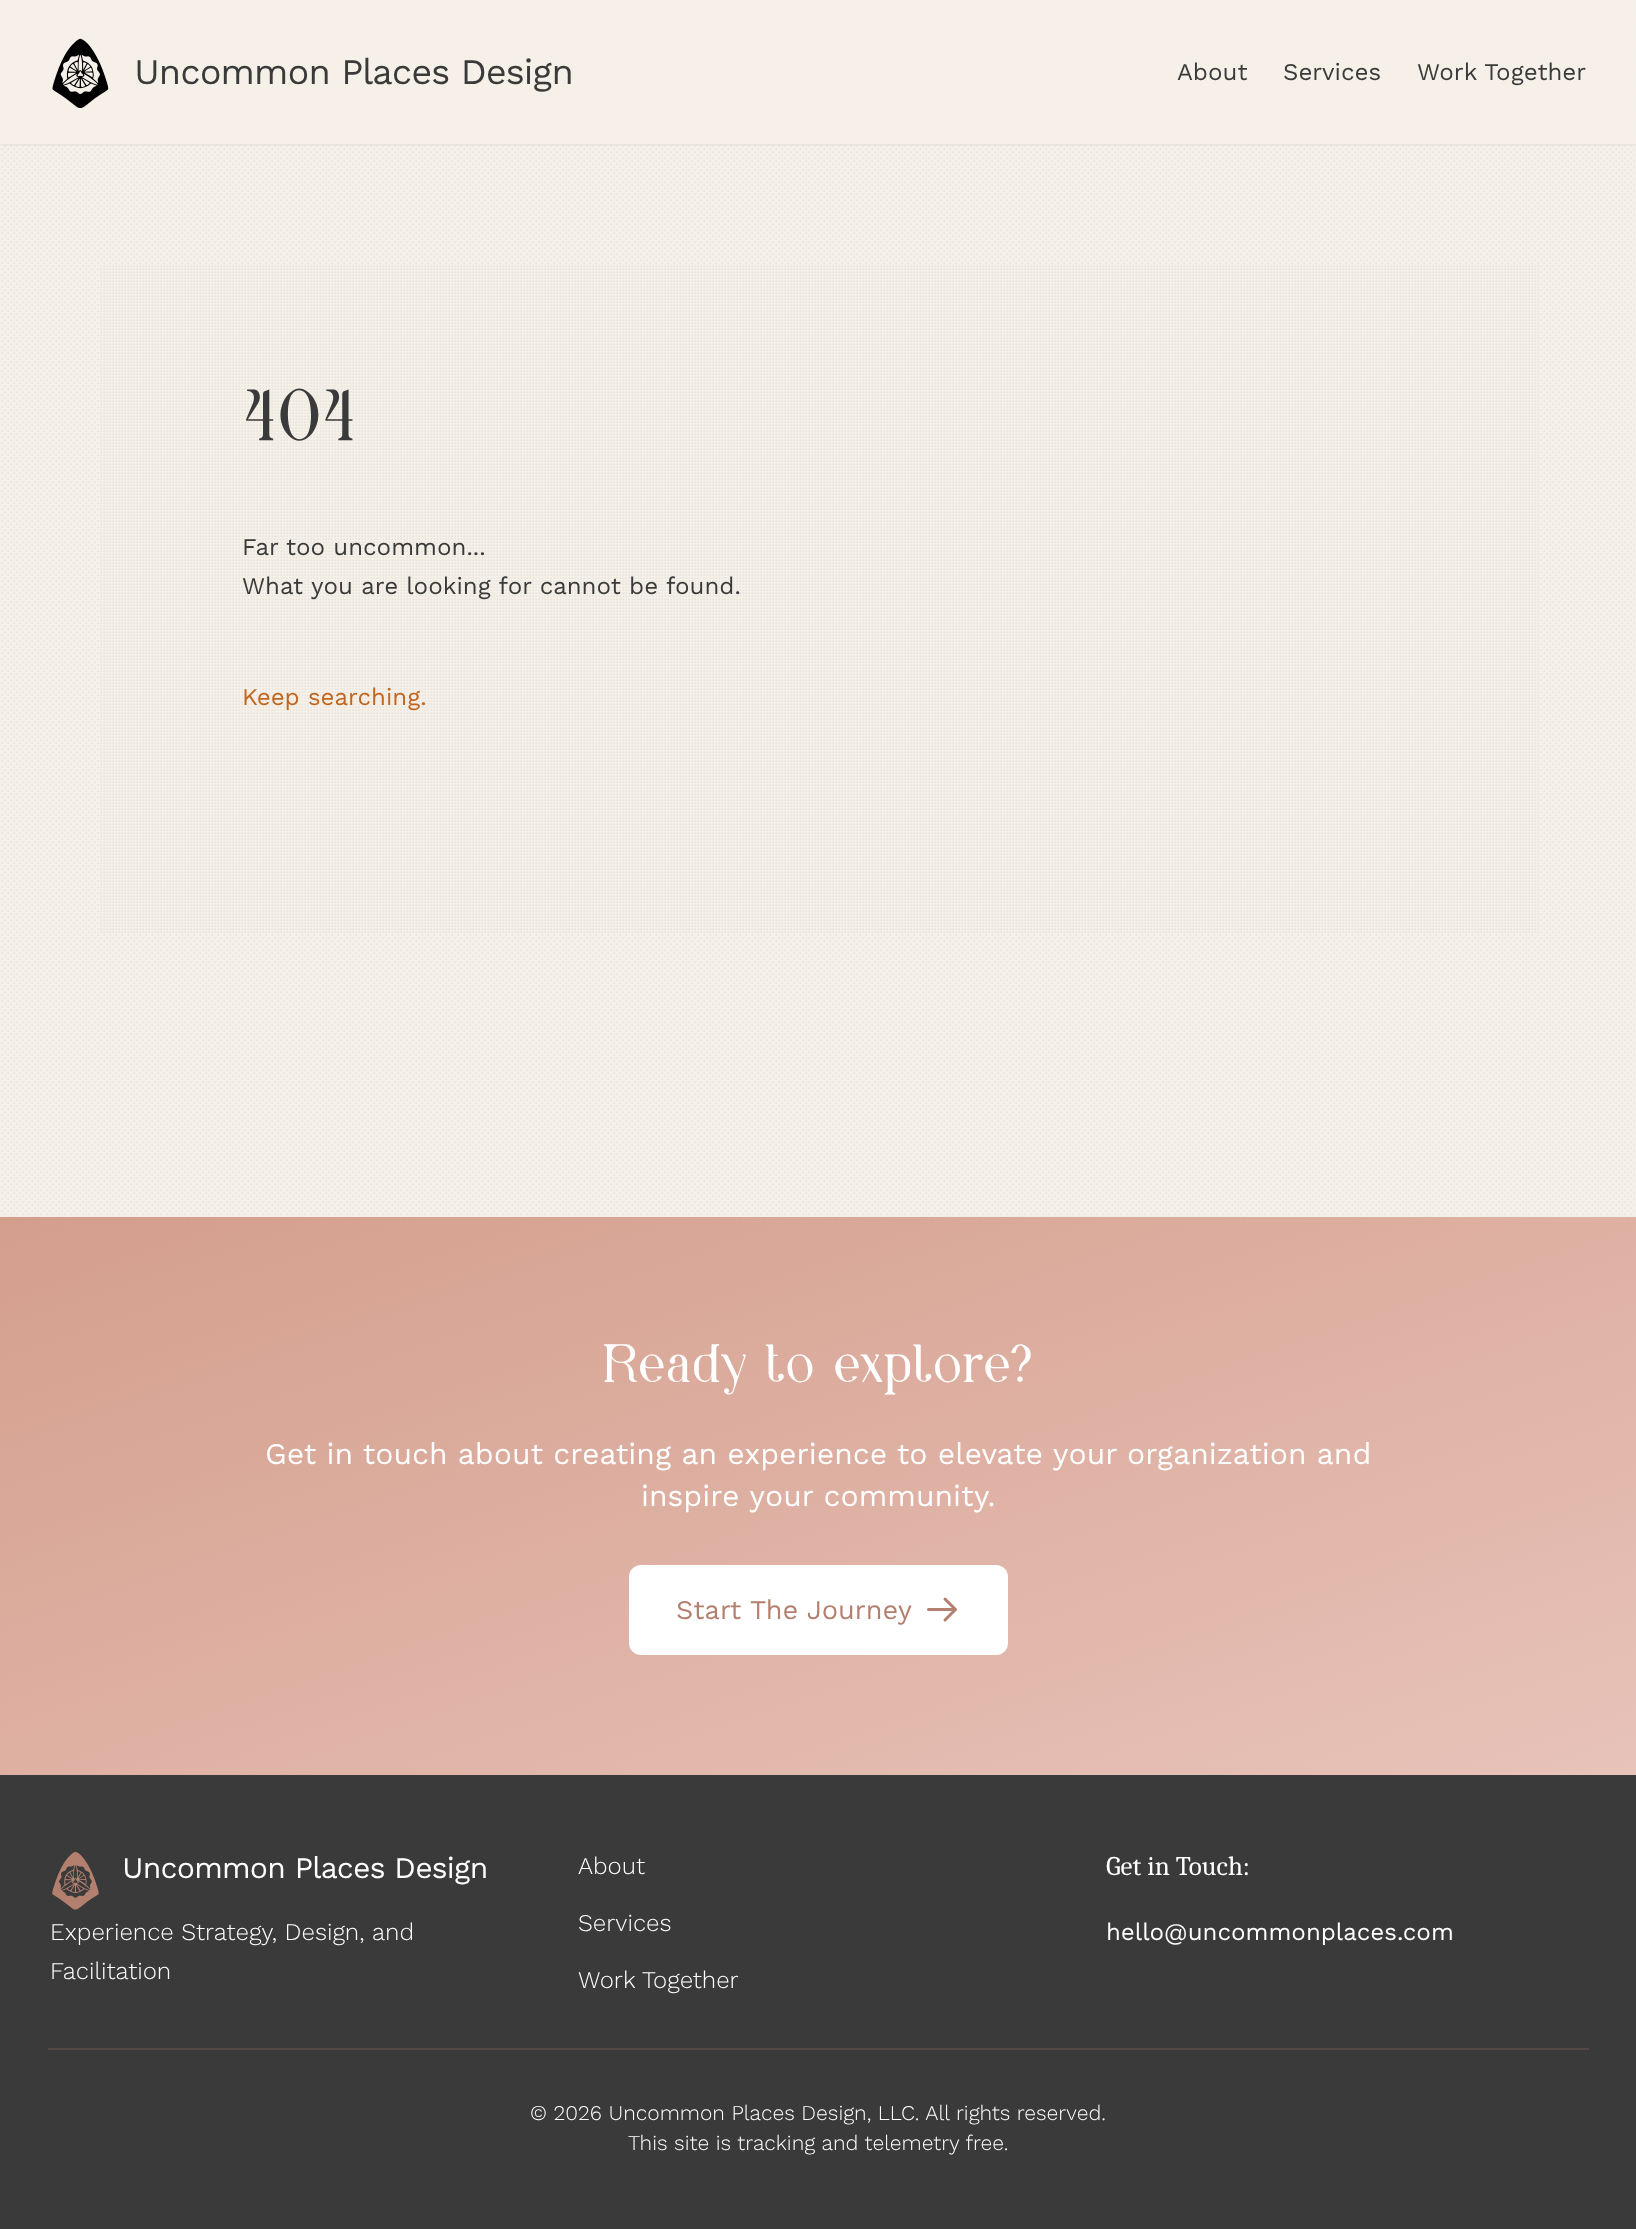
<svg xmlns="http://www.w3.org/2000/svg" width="1636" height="2229">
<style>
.a{font:36px Work Sans;letter-spacing:-0.9px;fill:#3a3a3a}
.b{font:24px Work Sans;fill:#3a3a3a}
.c{font:72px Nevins;fill:#3a3a3a}
.d{font:24px Work Sans;fill:#c1661f}
.e{font:54px Nevins;fill:#fff}
.f{font:30px Work Sans;fill:#fff}
.g{font:27px Work Sans;fill:#b37f6e}
.h{font:30px Work Sans;letter-spacing:-0.75px;fill:#fff}
.i{font:300 24px Work Sans;fill:#fff}
.j{font:27px Caladea;fill:#fff}
.k{font:24px Work Sans;fill:#fff}
.l{font:300 21px Work Sans;fill:#fff}
</style>
<defs>
<clipPath id="clip1"><path d="M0 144h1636v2H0z"/></clipPath>
<linearGradient id="g1" gradientUnits="userSpaceOnUse" x1="648" y1="996" x2="989" y2="1995"><stop offset="0" stop-color="#d49e8d"/><stop offset="1" stop-color="#e8c3b9"/></linearGradient>
</defs>
<rect width="100%" height="100%" fill="#f5f0e8"/>
<image href="1.png" x="1" y="1" width="1634" height="1216"/>
<g clip-path="url(#clip1)">
<path fill="#0000000d" filter="blur(1.5px)" d="M0 2h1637v144H0z"/>
</g>
<path fill="#f5f0e8e6" d="M1 1h1634v143H1z"/>
<image href="2.png" x="52" y="38" width="57" height="70"/>
<image href="3.png" x="100" y="265" width="1439" height="668"/>
<path fill="url(#g1)" d="M0 1217h1636v558H0z"/>
<rect fill="#fff" x="629" y="1565" width="379" height="90" rx="12"/>
<path fill="none" stroke="#b37f6e" stroke-width="3" stroke-linecap="round" stroke-linejoin="round" d="M945 1599l10.5 10.5m0 0l-10.5 10.5m10.5-10.5h-27"/>
<path fill="#3a3a3a" d="M0 1775h1636v454H0z"/>
<image href="4.png" x="52" y="1851" width="47" height="59"/>
<path fill="#524844" d="M48 2048h1541v2H48z"/>
<text class="a" x="134" y="84">Uncommon Places Design</text>
<text class="b" x="1177" y="80">About</text>
<text class="b" x="1283" y="80">Services</text>
<text class="b" x="1417" y="80">Work Together</text>
<text class="c" x="242" y="440">404</text>
<text class="b" x="242" y="555">Far too uncommon...</text>
<text class="b" x="242" y="594">What you are looking for cannot be found.</text>
<text class="d" x="242" y="705">Keep searching.</text>
<text class="e" x="602" y="1382">Ready to explore?</text>
<text class="f" x="265" y="1464">Get in touch about creating an experience to elevate your organization and</text>
<text class="f" x="641" y="1506">inspire your community.</text>
<text class="g" x="676" y="1619">Start The Journey</text>
<text class="h" x="122" y="1878">Uncommon Places Design</text>
<text class="i" x="50" y="1940">Experience Strategy, Design, and</text>
<text class="i" x="50" y="1979">Facilitation</text>
<text class="i" x="578" y="1874">About</text>
<text class="i" x="578" y="1931">Services</text>
<text class="i" x="578" y="1988">Work Together</text>
<text class="j" x="1106" y="1875">Get in Touch:</text>
<text class="k" x="1106" y="1940">hello@uncommonplaces.com</text>
<text class="l" x="530" y="2120">© 2026 Uncommon Places Design, LLC. All rights reserved.</text>
<text class="l" x="628" y="2150">This site is tracking and telemetry free.</text>
</svg>
